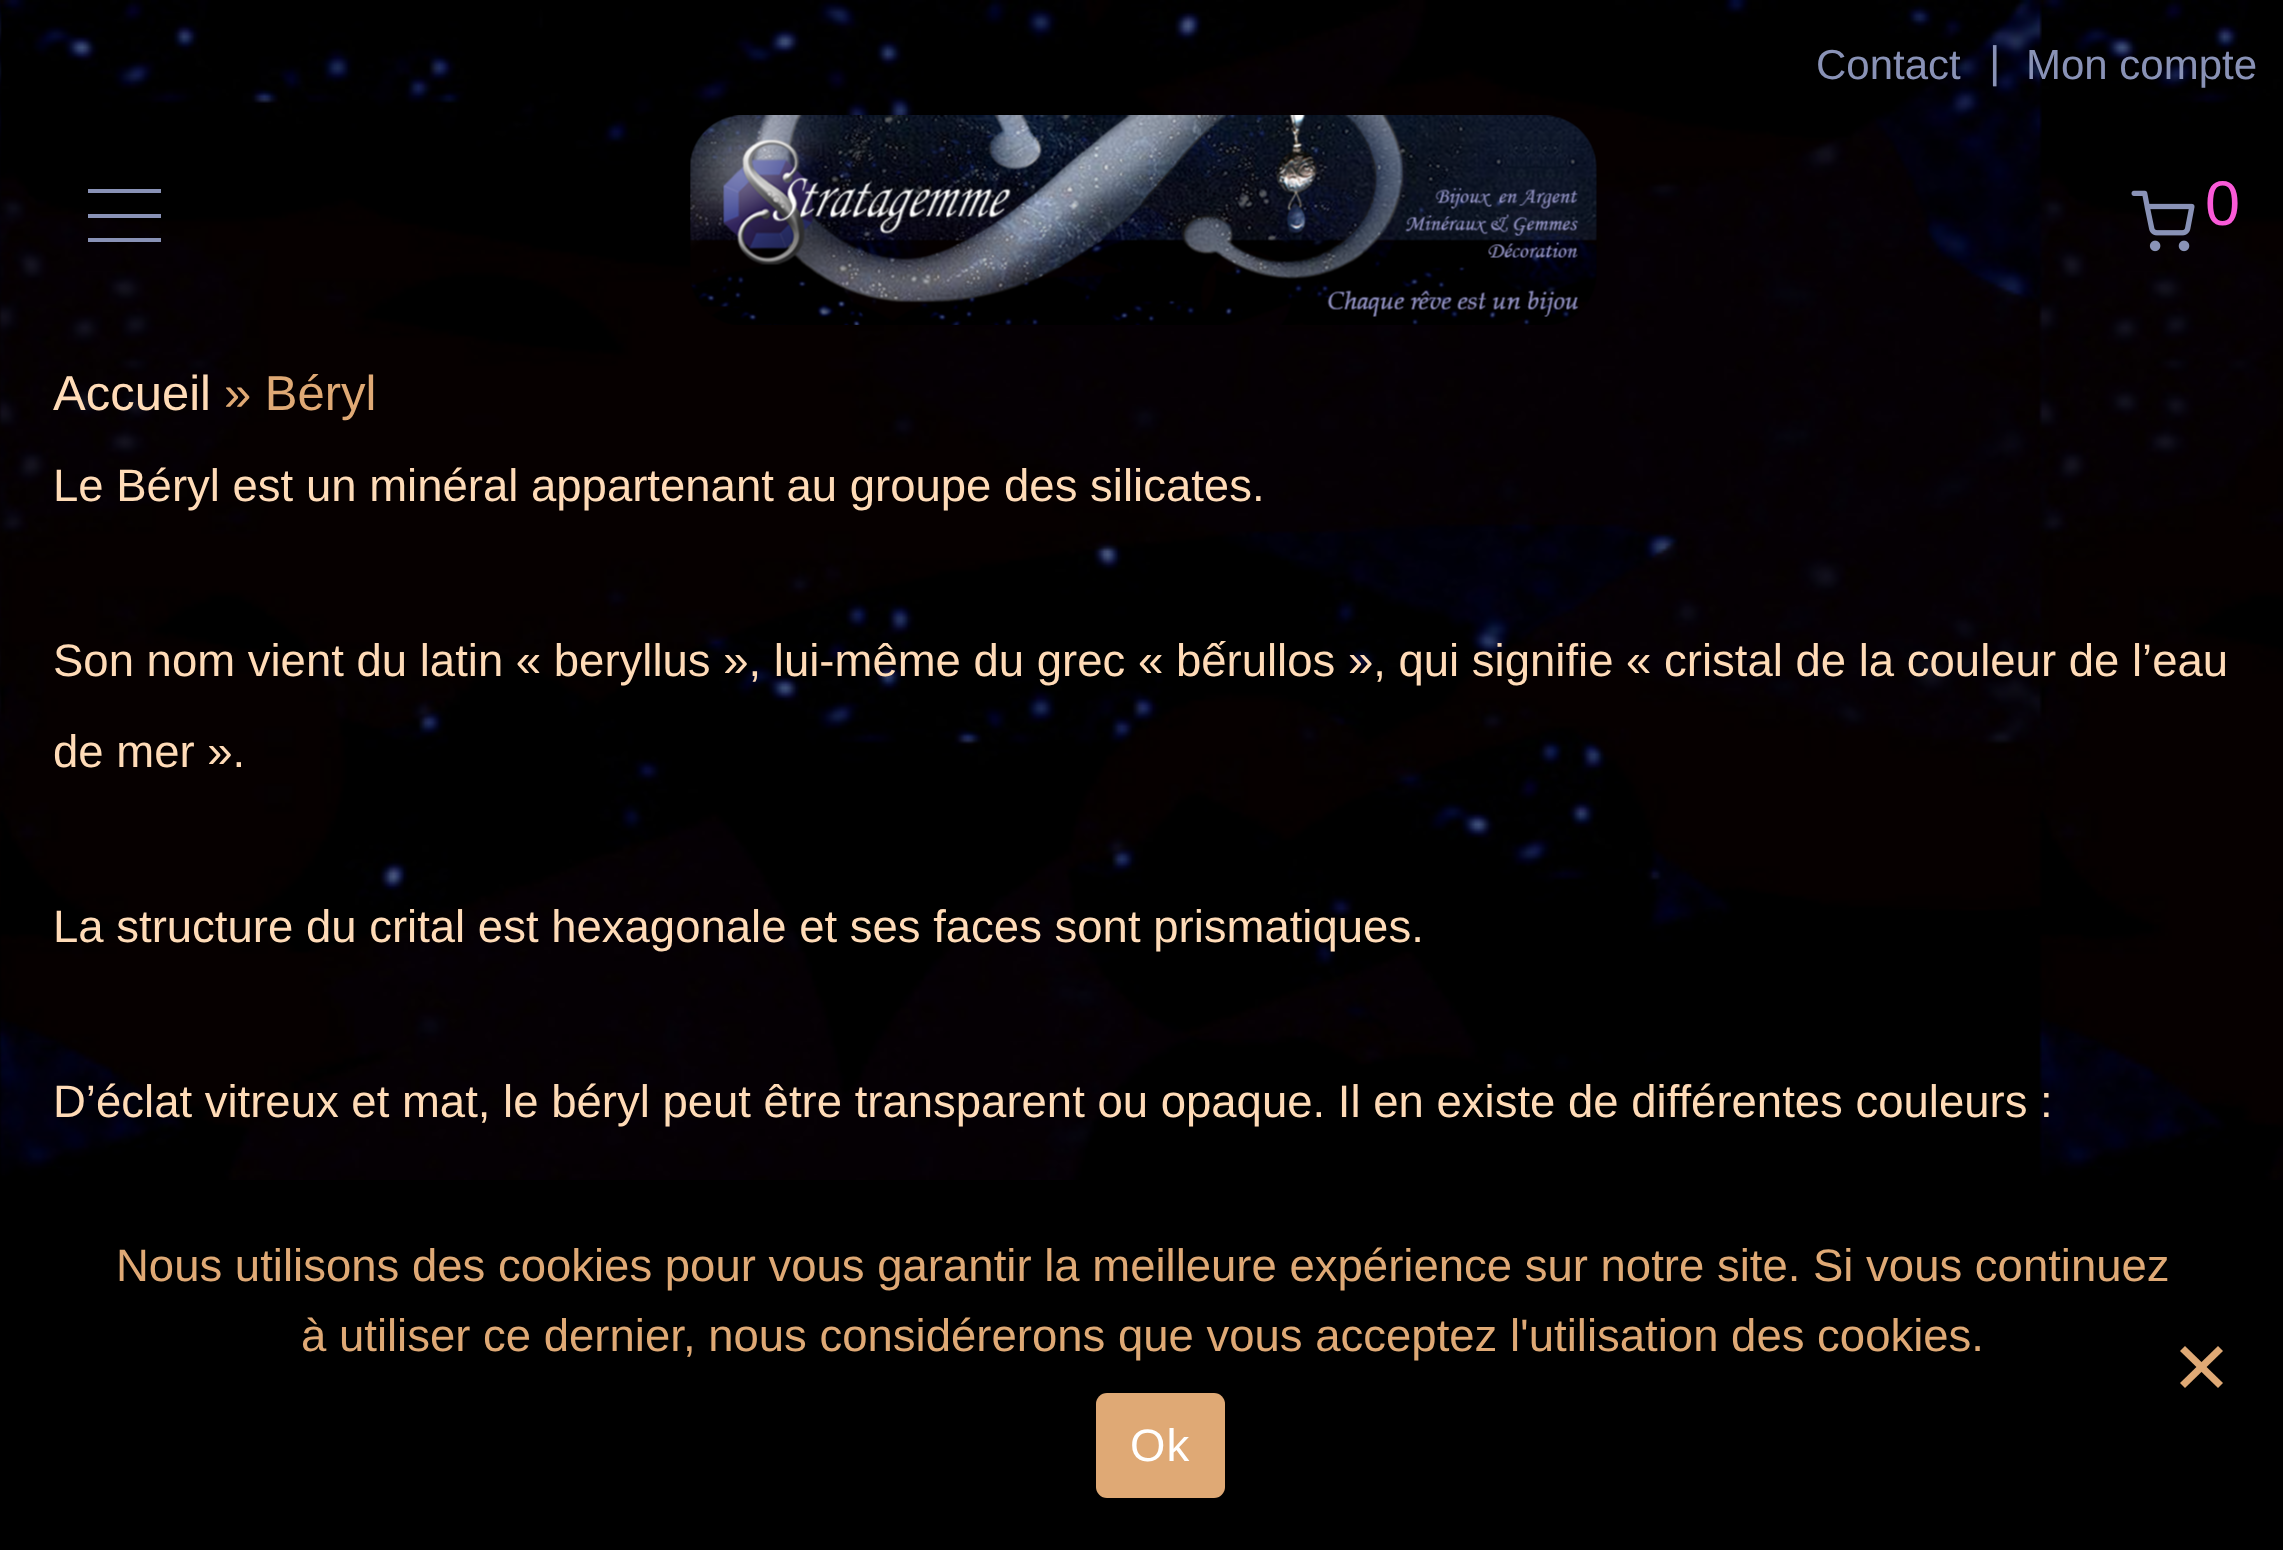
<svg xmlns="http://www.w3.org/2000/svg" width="2283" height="1550">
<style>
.a{font:42px Liberation Sans;fill:#8992b6}
.b{font:44px Liberation Sans;fill:#8992b6}
.c{font:63px Liberation Sans;fill:#fa5ad8}
.d{font:49px Liberation Sans;fill:#ffdbb7}
.e{font:49px Liberation Sans;fill:#dfa975}
.f{font:45.5px Liberation Sans;fill:#ffdbb7}
.g{font:45.5px Liberation Sans;fill:#dfa975}
.h{font:45.5px Liberation Sans;letter-spacing:1px;fill:#fff}
</style>
<rect width="100%" height="100%" fill="#fff"/>
<image href="1.png" x="0" y="0" width="2283" height="1180"/>
<image href="2.png" x="690" y="115" width="907" height="210"/>
<path fill="#8992b6" d="M88 189h73v4H88z"/>
<path fill="#8992b6" d="M88 214h73v4H88z"/>
<path fill="#8992b6" d="M88 238h73v4H88z"/>
<image href="3.png" x="2131" y="190" width="64" height="62"/>
<path fill="#000" d="M0 1180h2283v370H0z"/>
<path fill="#dfa975" d="M2218 1346l5 5l-38 37l-5-5z"/>
<path fill="#dfa975" d="M2180 1351l5-5l38 37l-5 5z"/>
<rect fill="#dfa975" x="1096" y="1393" width="129" height="105" rx="11"/>
<text class="a" x="1816" y="79">Contact</text>
<text class="b" x="1989" y="77">|</text>
<text class="a" x="2026" y="79">Mon compte</text>
<text class="c" x="2205" y="225">0</text>
<text class="d" x="53" y="410">Accueil</text>
<text class="e" x="224" y="410">» Béryl</text>
<text class="f" x="53" y="501">Le Béryl est un minéral appartenant au groupe des silicates.</text>
<text class="f" x="53" y="676">Son nom vient du latin « beryllus », lui-même du grec « bếrullos », qui signifie « cristal de la couleur de l’eau</text>
<text class="f" x="53" y="767">de mer ».</text>
<text class="f" x="53" y="942">La structure du crital est hexagonale et ses faces sont prismatiques.</text>
<text class="f" x="53" y="1117">D’éclat vitreux et mat, le béryl peut être transparent ou opaque. Il en existe de différentes couleurs :</text>
<text class="g" x="116" y="1281">Nous utilisons des cookies pour vous garantir la meilleure expérience sur notre site. Si vous continuez</text>
<text class="g" x="301" y="1351">à utiliser ce dernier, nous considérerons que vous acceptez l'utilisation des cookies.</text>
<text class="h" x="1130" y="1461">Ok</text>
</svg>
